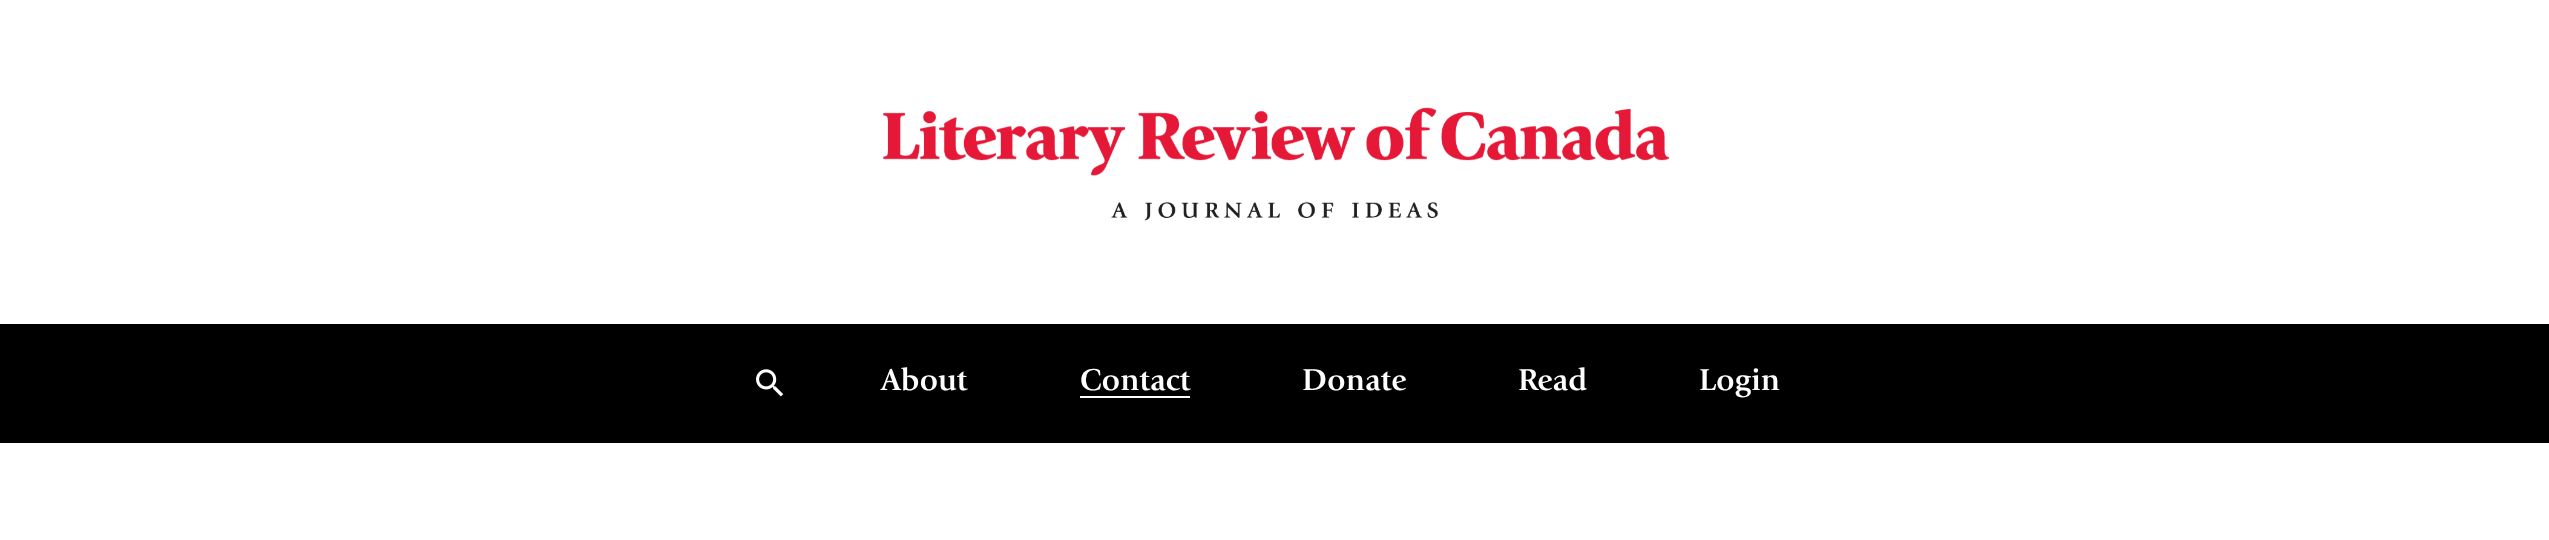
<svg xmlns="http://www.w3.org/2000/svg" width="2549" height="540">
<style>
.a{font:bold 31.5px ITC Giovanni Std;fill:#fff}
</style>
<rect width="100%" height="100%" fill="#fff"/>
<image href="1.png" x="883" y="107" width="787" height="114"/>
<path fill="#000" d="M0 324h2549v119H0z"/>
<image href="2.png" x="756" y="369" width="28" height="28"/>
<path fill="#fff" d="M1080 396h110v2H1080z"/>
<text class="a" x="881" y="390">About</text>
<text class="a" x="1080" y="390">Contact</text>
<text class="a" x="1302" y="390">Donate</text>
<text class="a" x="1518" y="390">Read</text>
<text class="a" x="1699" y="390">Login</text>
</svg>
